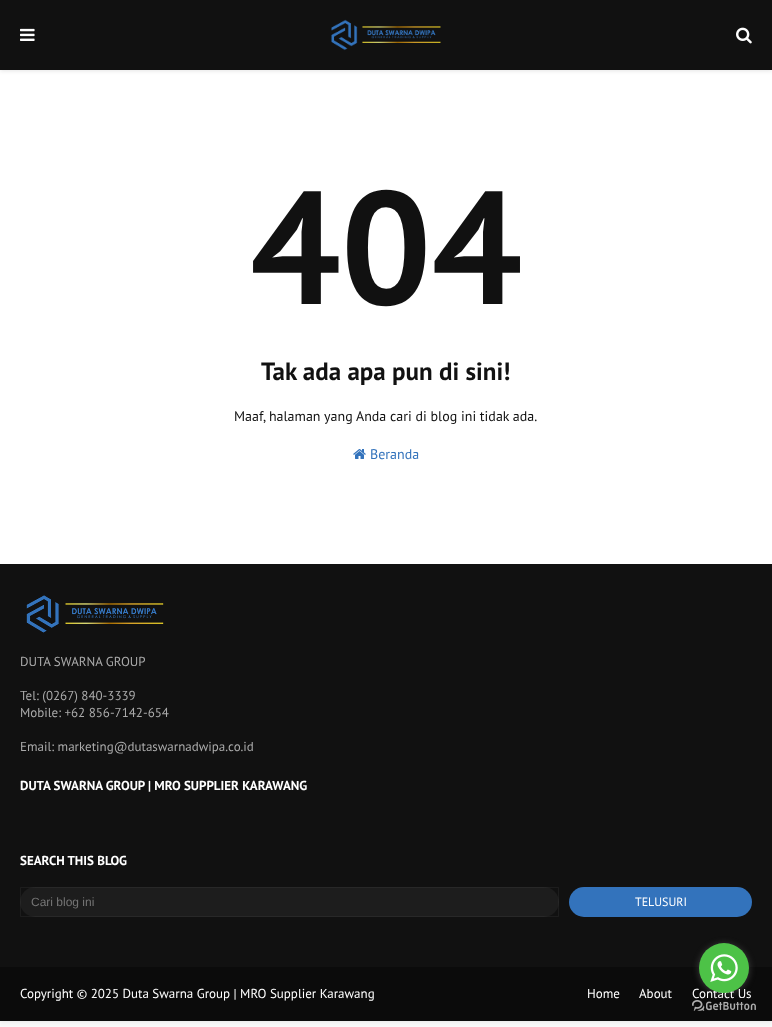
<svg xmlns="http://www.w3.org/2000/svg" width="772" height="1027">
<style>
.a{font:bold 160px PT Sans;fill:#111}
.b{font:bold 25px PT Sans;fill:#111}
.c{font:14px PT Sans;fill:#111}
.d{font:14px PT Sans;fill:#3373bc}
.e{font:13px PT Sans;fill:#aaa}
.f{font:bold 13px PT Sans;fill:#fff}
.g{font:12px Liberation Sans;fill:#757575}
.h{font:12px PT Sans;fill:#fff}
.i{font:13px PT Sans;fill:#fff}
</style>
<rect width="100%" height="100%" fill="#f8f8f8"/>
<path fill="#0000001a" filter="blur(2.5px)" d="M0 0h772v1021H0z"/>
<path fill="#fff" d="M0 70h772v494H0z"/>
<path fill="#0000001a" filter="blur(2px)" d="M0 1h772v70H0z"/>
<path fill="#111" d="M0 0h772v70H0z"/>
<image href="1.png" x="20" y="28" width="15" height="13"/>
<image href="2.png" x="331" y="19" width="110" height="32"/>
<image href="3.png" x="736" y="27" width="16" height="17"/>
<image href="4.png" x="353" y="449" width="13" height="10"/>
<path fill="#111" d="M0 564h772v403H0z"/>
<image href="5.png" x="26" y="595" width="138" height="38"/>
<rect fill="#1d1d1d" x="20" y="887" width="539" height="30" rx="15"/>
<path fill="none" stroke="#ffffff0d" d="M20.5 887.5h538v29H20.5z"/>
<rect fill="#3373bc" x="569" y="887" width="183" height="30" rx="15"/>
<path fill="#0b0b0b" d="M0 967h772v54H0z"/>
<image href="7.png" x="692" y="1000" width="64" height="11"/>
<rect fill="#88888866" filter="blur(3.5px)" x="699" y="944" width="50" height="50" rx="25"/>
<text class="a" x="250" y="304">404</text>
<text class="b" x="261" y="380">Tak ada apa pun di sini!</text>
<text class="c" x="234" y="421">Maaf, halaman yang Anda cari di blog ini tidak ada.</text>
<text class="d" x="370" y="459">Beranda</text>
<text class="e" x="20" y="666">DUTA SWARNA GROUP</text>
<text class="e" x="20" y="700">Tel: (0267) 840-3339</text>
<text class="e" x="20" y="717">Mobile: +62 856-7142-654</text>
<text class="e" x="20" y="751">Email: marketing@dutaswarnadwipa.co.id</text>
<text class="f" x="20" y="790">DUTA SWARNA GROUP | MRO SUPPLIER KARAWANG</text>
<text class="f" x="20" y="865">SEARCH THIS BLOG</text>
<text class="g" x="31" y="906">Cari blog ini</text>
<text class="h" x="635" y="906">TELUSURI</text>
<text class="i" x="20" y="998">Copyright © 2025 Duta Swarna Group | MRO Supplier Karawang</text>
<text class="i" x="587" y="998">Home</text>
<text class="i" x="639" y="998">About</text>
<text class="i" x="692" y="998">Contact Us</text>
<circle fill="#4dc247" cx="724" cy="968" r="25"/>
<image href="6.png" x="710" y="954" width="28" height="28"/>
</svg>
